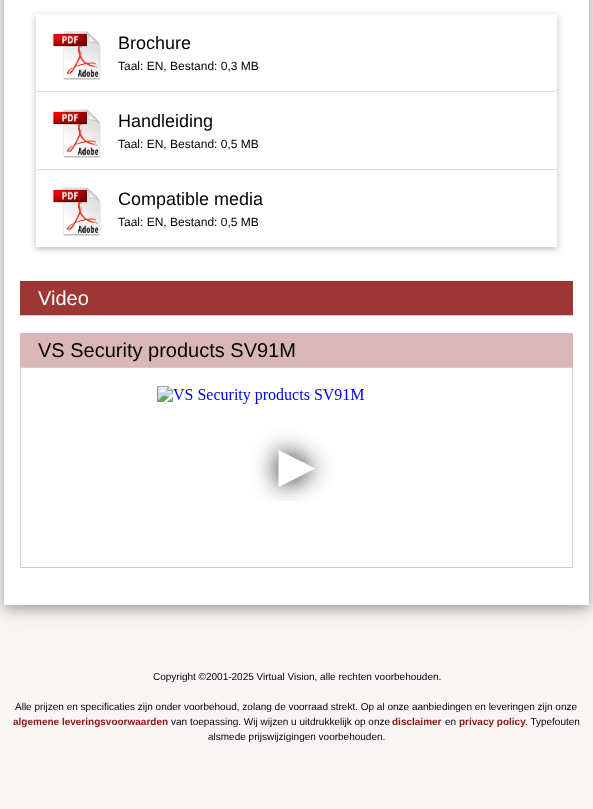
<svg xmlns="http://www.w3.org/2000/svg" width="593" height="809">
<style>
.a{font:18px Liberation Sans;fill:#000}
.b{font:12px Liberation Sans;fill:#000}
.c{font:20px Liberation Sans;fill:#fff}
.d{font:20px Liberation Sans;fill:#000}
.e{font:10px Liberation Sans;fill:#000}
.f{font:bold 10px Liberation Sans;fill:#8c1516}
</style>
<defs>
<clipPath id="clip1"><path d="M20 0h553v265h-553zm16 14h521v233h-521z" clip-rule="evenodd"/></clipPath>
<clipPath id="clip2"><path d="M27 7h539v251h-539zm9 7h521v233h-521z" clip-rule="evenodd"/></clipPath>
</defs>
<rect width="100%" height="100%" fill="#faf5f5"/>
<path fill="#00000030" filter="blur(10px)" d="M4 -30h585v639H4z"/>
<path fill="#00000033" filter="blur(5px)" d="M4 -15h585v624H4z"/>
<path fill="#fff" d="M4 0h585v605H4z"/>
<g clip-path="url(#clip1)">
<path fill="#0000001f" filter="blur(5px)" d="M36 16h521v233H36z"/>
</g>
<g clip-path="url(#clip2)">
<path fill="#00000029" filter="blur(2.5px)" d="M36 16h521v233H36z"/>
</g>
<path fill="#ddd" d="M36 91h521v1H36z"/>
<image href="1.png" x="52" y="31" width="49" height="49"/>
<path fill="#ddd" d="M36 169h521v1H36z"/>
<image href="1.png" x="52" y="109" width="49" height="49"/>
<image href="1.png" x="52" y="187" width="49" height="49"/>
<path fill="#9d3736" d="M20 281h553v34H20z"/>
<path fill="#ccc" d="M20 315h553v1H20z"/>
<path fill="#dbb6b6" d="M20 333h553v34H20z"/>
<path fill="#ccc" d="M20 367h553v1H20z"/>
<path fill="#ccc" d="M572 367h1v201H572z"/>
<path fill="#ccc" d="M20 567h553v1H20z"/>
<path fill="#ccc" d="M20 367h1v201H20z"/>
<image href="2.png" x="157" y="386" width="207" height="115"/>
<text class="a" x="118" y="49">Brochure</text>
<text class="b" x="118" y="70">Taal: EN, Bestand: 0,3 MB</text>
<text class="a" x="118" y="127">Handleiding</text>
<text class="b" x="118" y="148">Taal: EN, Bestand: 0,5 MB</text>
<text class="a" x="118" y="205">Compatible media</text>
<text class="b" x="118" y="226">Taal: EN, Bestand: 0,5 MB</text>
<text class="c" x="38" y="305">Video</text>
<text class="d" x="38" y="357">VS Security products SV91M</text>
<text class="e" x="153" y="680">Copyright ©2001-2025 Virtual Vision, alle rechten voorbehouden.</text>
<text class="e" x="15" y="710">Alle prijzen en specificaties zijn onder voorbehoud, zolang de voorraad strekt. Op al onze aanbiedingen en leveringen zijn onze</text>
<text class="f" x="13" y="725">algemene leveringsvoorwaarden</text>
<text class="e" x="171" y="725">van toepassing. Wij wijzen u uitdrukkelijk op onze</text>
<text class="f" x="392" y="725">disclaimer</text>
<text class="e" x="445" y="725">en</text>
<text class="f" x="459" y="725">privacy policy</text>
<text class="e" x="525" y="725">. Typefouten</text>
<text class="e" x="208" y="740">alsmede prijswijzigingen voorbehouden.</text>
</svg>
